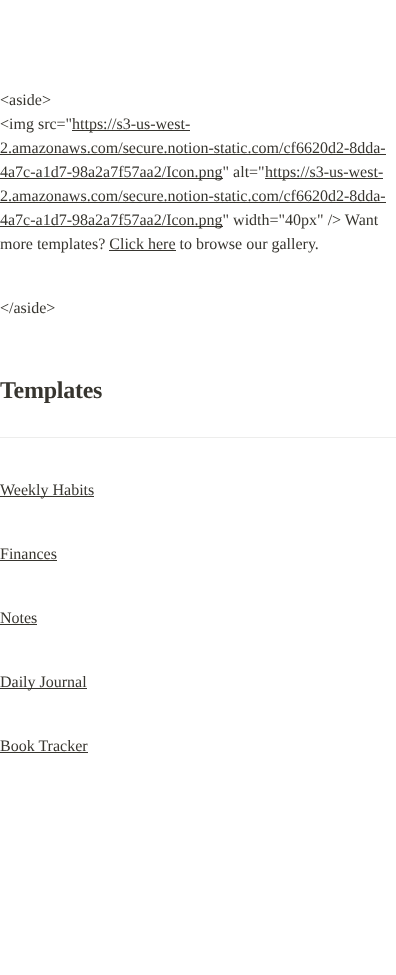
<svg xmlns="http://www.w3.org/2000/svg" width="396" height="975">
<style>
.a{font:16px Liberation Serif;fill:#37352f}
.b{font:bold 24px Liberation Serif;letter-spacing:-0.25px;fill:#37352f}
</style>
<rect width="100%" height="100%" fill="#fff"/>
<path fill="#37352f" d="M72 130h118v1H72z"/>
<path fill="#37352f" d="M0 154h386v1H0z"/>
<path fill="#37352f" d="M0 178h223v1H0z"/>
<path fill="#37352f" d="M265 178h118v1H265z"/>
<path fill="#37352f" d="M0 202h386v1H0z"/>
<path fill="#37352f" d="M0 226h223v1H0z"/>
<path fill="#37352f" d="M109 250h67v1H109z"/>
<path fill="#ededec" d="M0 437h396v1H0z"/>
<path fill="#37352f" d="M0 496h94v1H0z"/>
<path fill="#37352f" d="M0 560h57v1H0z"/>
<path fill="#37352f" d="M0 624h37v1H0z"/>
<path fill="#37352f" d="M0 688h87v1H0z"/>
<path fill="#37352f" d="M0 752h88v1H0z"/>
<text class="a" x="0" y="105">&lt;aside&gt;</text>
<text class="a" x="0" y="129">&lt;img src="</text>
<text class="a" x="72" y="129">https://s3-us-west-</text>
<text class="a" x="0" y="153">2.amazonaws.com/secure.notion-static.com/cf6620d2-8dda-</text>
<text class="a" x="0" y="177">4a7c-a1d7-98a2a7f57aa2/Icon.png" alt="</text>
<text class="a" x="265" y="177">https://s3-us-west-</text>
<text class="a" x="0" y="201">2.amazonaws.com/secure.notion-static.com/cf6620d2-8dda-</text>
<text class="a" x="0" y="225">4a7c-a1d7-98a2a7f57aa2/Icon.png" width="40px" /&gt; Want</text>
<text class="a" x="0" y="249">more templates? Click here to browse our gallery.</text>
<text class="a" x="0" y="313">&lt;/aside&gt;</text>
<text class="b" x="0" y="398">Templates</text>
<text class="a" x="0" y="495">Weekly Habits</text>
<text class="a" x="0" y="559">Finances</text>
<text class="a" x="0" y="623">Notes</text>
<text class="a" x="0" y="687">Daily Journal</text>
<text class="a" x="0" y="751">Book Tracker</text>
</svg>
